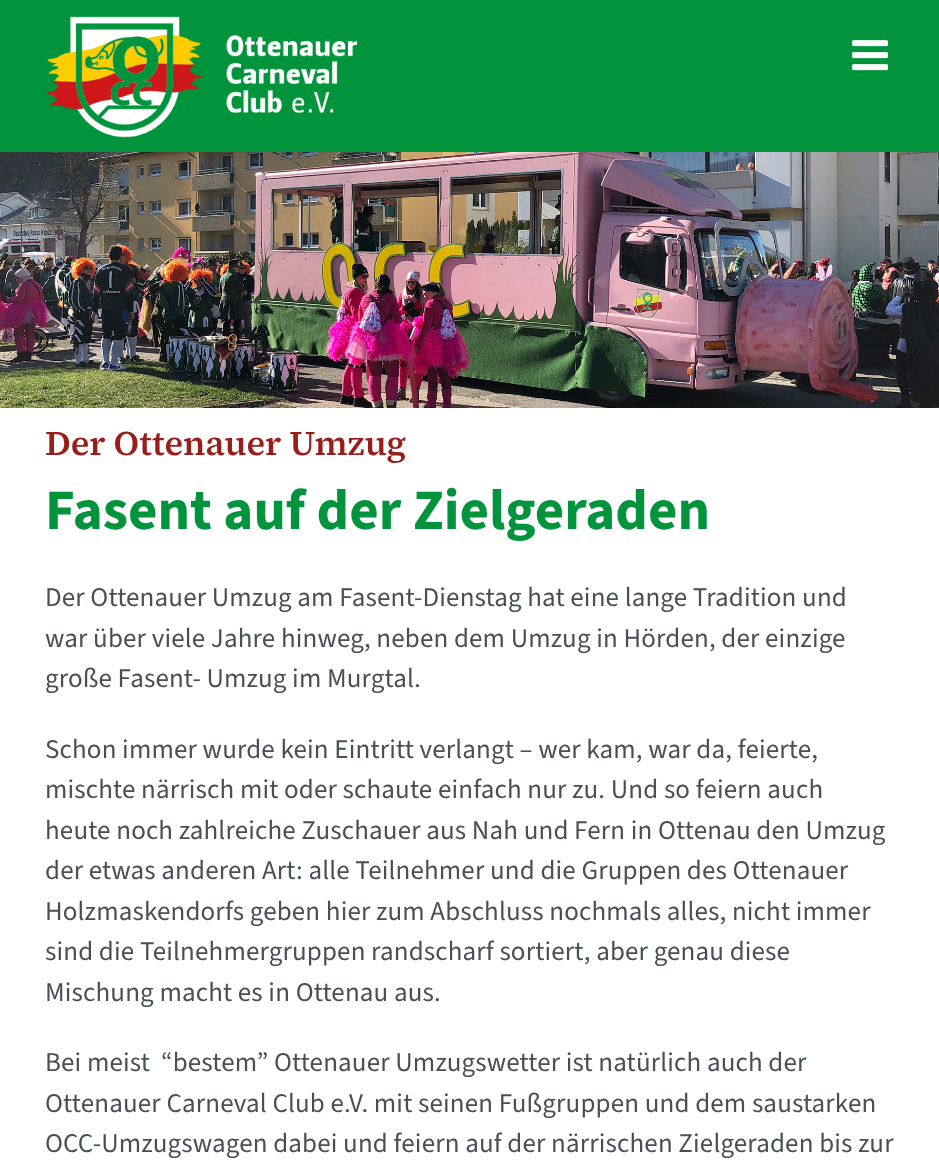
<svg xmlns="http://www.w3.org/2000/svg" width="939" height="1160">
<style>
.a{font:600 34.5px 'Source Serif 4';fill:#981e1c}
.b{font:bold 57px 'Source Sans 3';fill:#01943c}
.c{font:27px 'Source Sans 3';letter-spacing:0.15px;fill:#4a4e57}
</style>
<rect width="100%" height="100%" fill="#fff"/>
<path fill="#01943c" d="M0 0h939v152H0z"/>
<image href="1.png" x="46" y="16" width="311" height="122"/>
<image href="2.png" x="852" y="40" width="36" height="31"/>
<image href="3.png" x="0" y="152" width="939" height="256"/>
<text class="a" x="45" y="455">Der Ottenauer Umzug</text>
<text class="b" x="45" y="529">Fasent auf der Zielgeraden</text>
<text class="c" x="45" y="606">Der Ottenauer Umzug am Fasent-Dienstag hat eine lange Tradition und</text>
<text class="c" x="45" y="647">war über viele Jahre hinweg, neben dem Umzug in Hörden, der einzige</text>
<text class="c" x="45" y="687">große Fasent- Umzug im Murgtal.</text>
<text class="c" x="45" y="758">Schon immer wurde kein Eintritt verlangt – wer kam, war da, feierte,</text>
<text class="c" x="45" y="798">mischte närrisch mit oder schaute einfach nur zu. Und so feiern auch</text>
<text class="c" x="45" y="839">heute noch zahlreiche Zuschauer aus Nah und Fern in Ottenau den Umzug</text>
<text class="c" x="45" y="879">der etwas anderen Art: alle Teilnehmer und die Gruppen des Ottenauer</text>
<text class="c" x="45" y="920">Holzmaskendorfs geben hier zum Abschluss nochmals alles, nicht immer</text>
<text class="c" x="45" y="960">sind die Teilnehmergruppen randscharf sortiert, aber genau diese</text>
<text class="c" x="45" y="1001">Mischung macht es in Ottenau aus.</text>
<text class="c" xml:space="preserve" x="45" y="1071">Bei meist  “bestem” Ottenauer Umzugswetter ist natürlich auch der</text>
<text class="c" x="45" y="1112">Ottenauer Carneval Club e.V. mit seinen Fußgruppen und dem saustarken</text>
<text class="c" x="45" y="1152">OCC-Umzugswagen dabei und feiern auf der närrischen Zielgeraden bis zur</text>
</svg>
